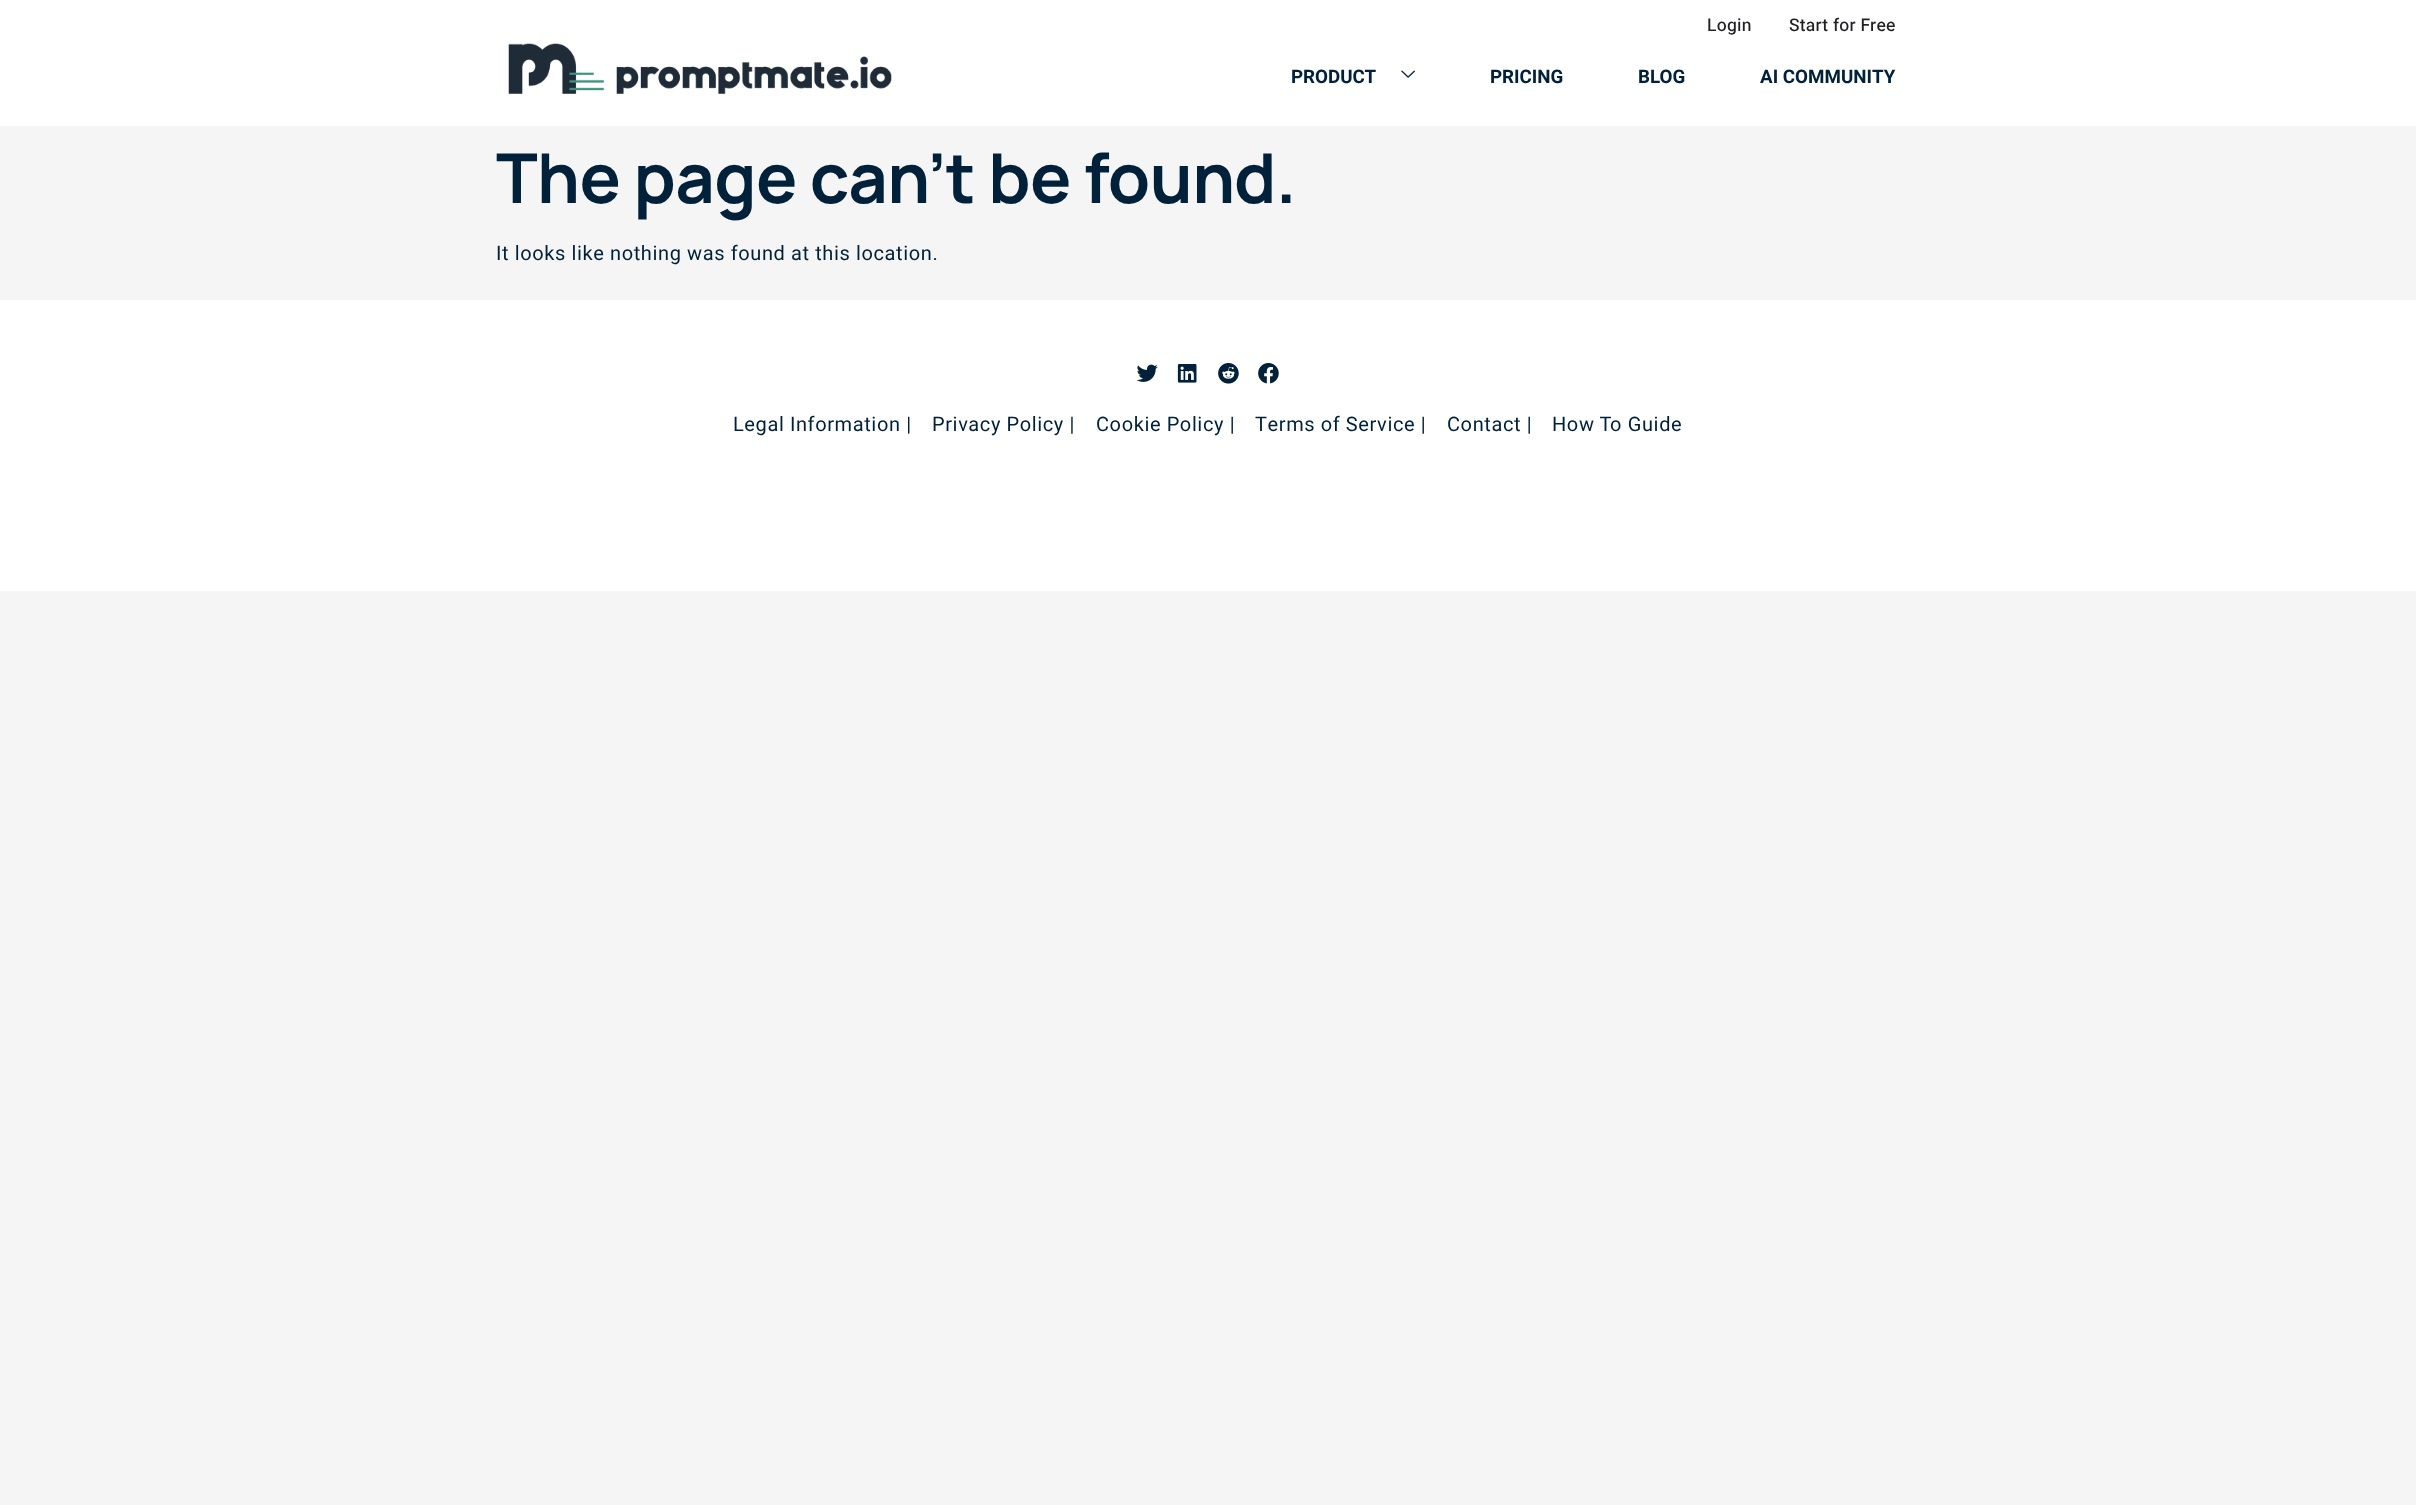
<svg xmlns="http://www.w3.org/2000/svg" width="2416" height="1505">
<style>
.a{font:500 17.5px Heebo;letter-spacing:0.25px;fill:#1f2124}
.b{font:bold 18.75px Heebo;fill:#01213a}
.c{font:bold 68.75px Manrope;letter-spacing:-0.6px;fill:#01213a}
.d{font:20px Heebo;letter-spacing:0.6px;fill:#01213a}
</style>
<rect width="100%" height="100%" fill="#f5f5f5"/>
<path fill="#fff" d="M0 0h2416v126H0z"/>
<image href="1.png" x="508" y="43" width="384" height="51"/>
<image href="2.png" x="1401" y="70" width="14" height="8"/>
<path fill="#fff" d="M0 300h2416v291H0z"/>
<image href="3.png" x="1136" y="364" width="22" height="18"/>
<image href="4.png" x="1177" y="364" width="20" height="19"/>
<image href="5.png" x="1218" y="363" width="21" height="21"/>
<image href="6.png" x="1258" y="363" width="21" height="21"/>
<text class="a" x="1707" y="31">Login</text>
<text class="a" x="1789" y="31">Start for Free</text>
<text class="b" x="1291" y="83">PRODUCT</text>
<text class="b" x="1490" y="83">PRICING</text>
<text class="b" x="1638" y="83">BLOG</text>
<text class="b" x="1760" y="83">AI COMMUNITY</text>
<text class="c" x="496" y="203">The page can’t be found.</text>
<text class="d" x="496" y="260">It looks like nothing was found at this location.</text>
<text class="d" x="733" y="431">Legal Information |</text>
<text class="d" x="932" y="431">Privacy Policy |</text>
<text class="d" x="1096" y="431">Cookie Policy |</text>
<text class="d" x="1255" y="431">Terms of Service |</text>
<text class="d" x="1447" y="431">Contact |</text>
<text class="d" x="1552" y="431">How To Guide</text>
</svg>
